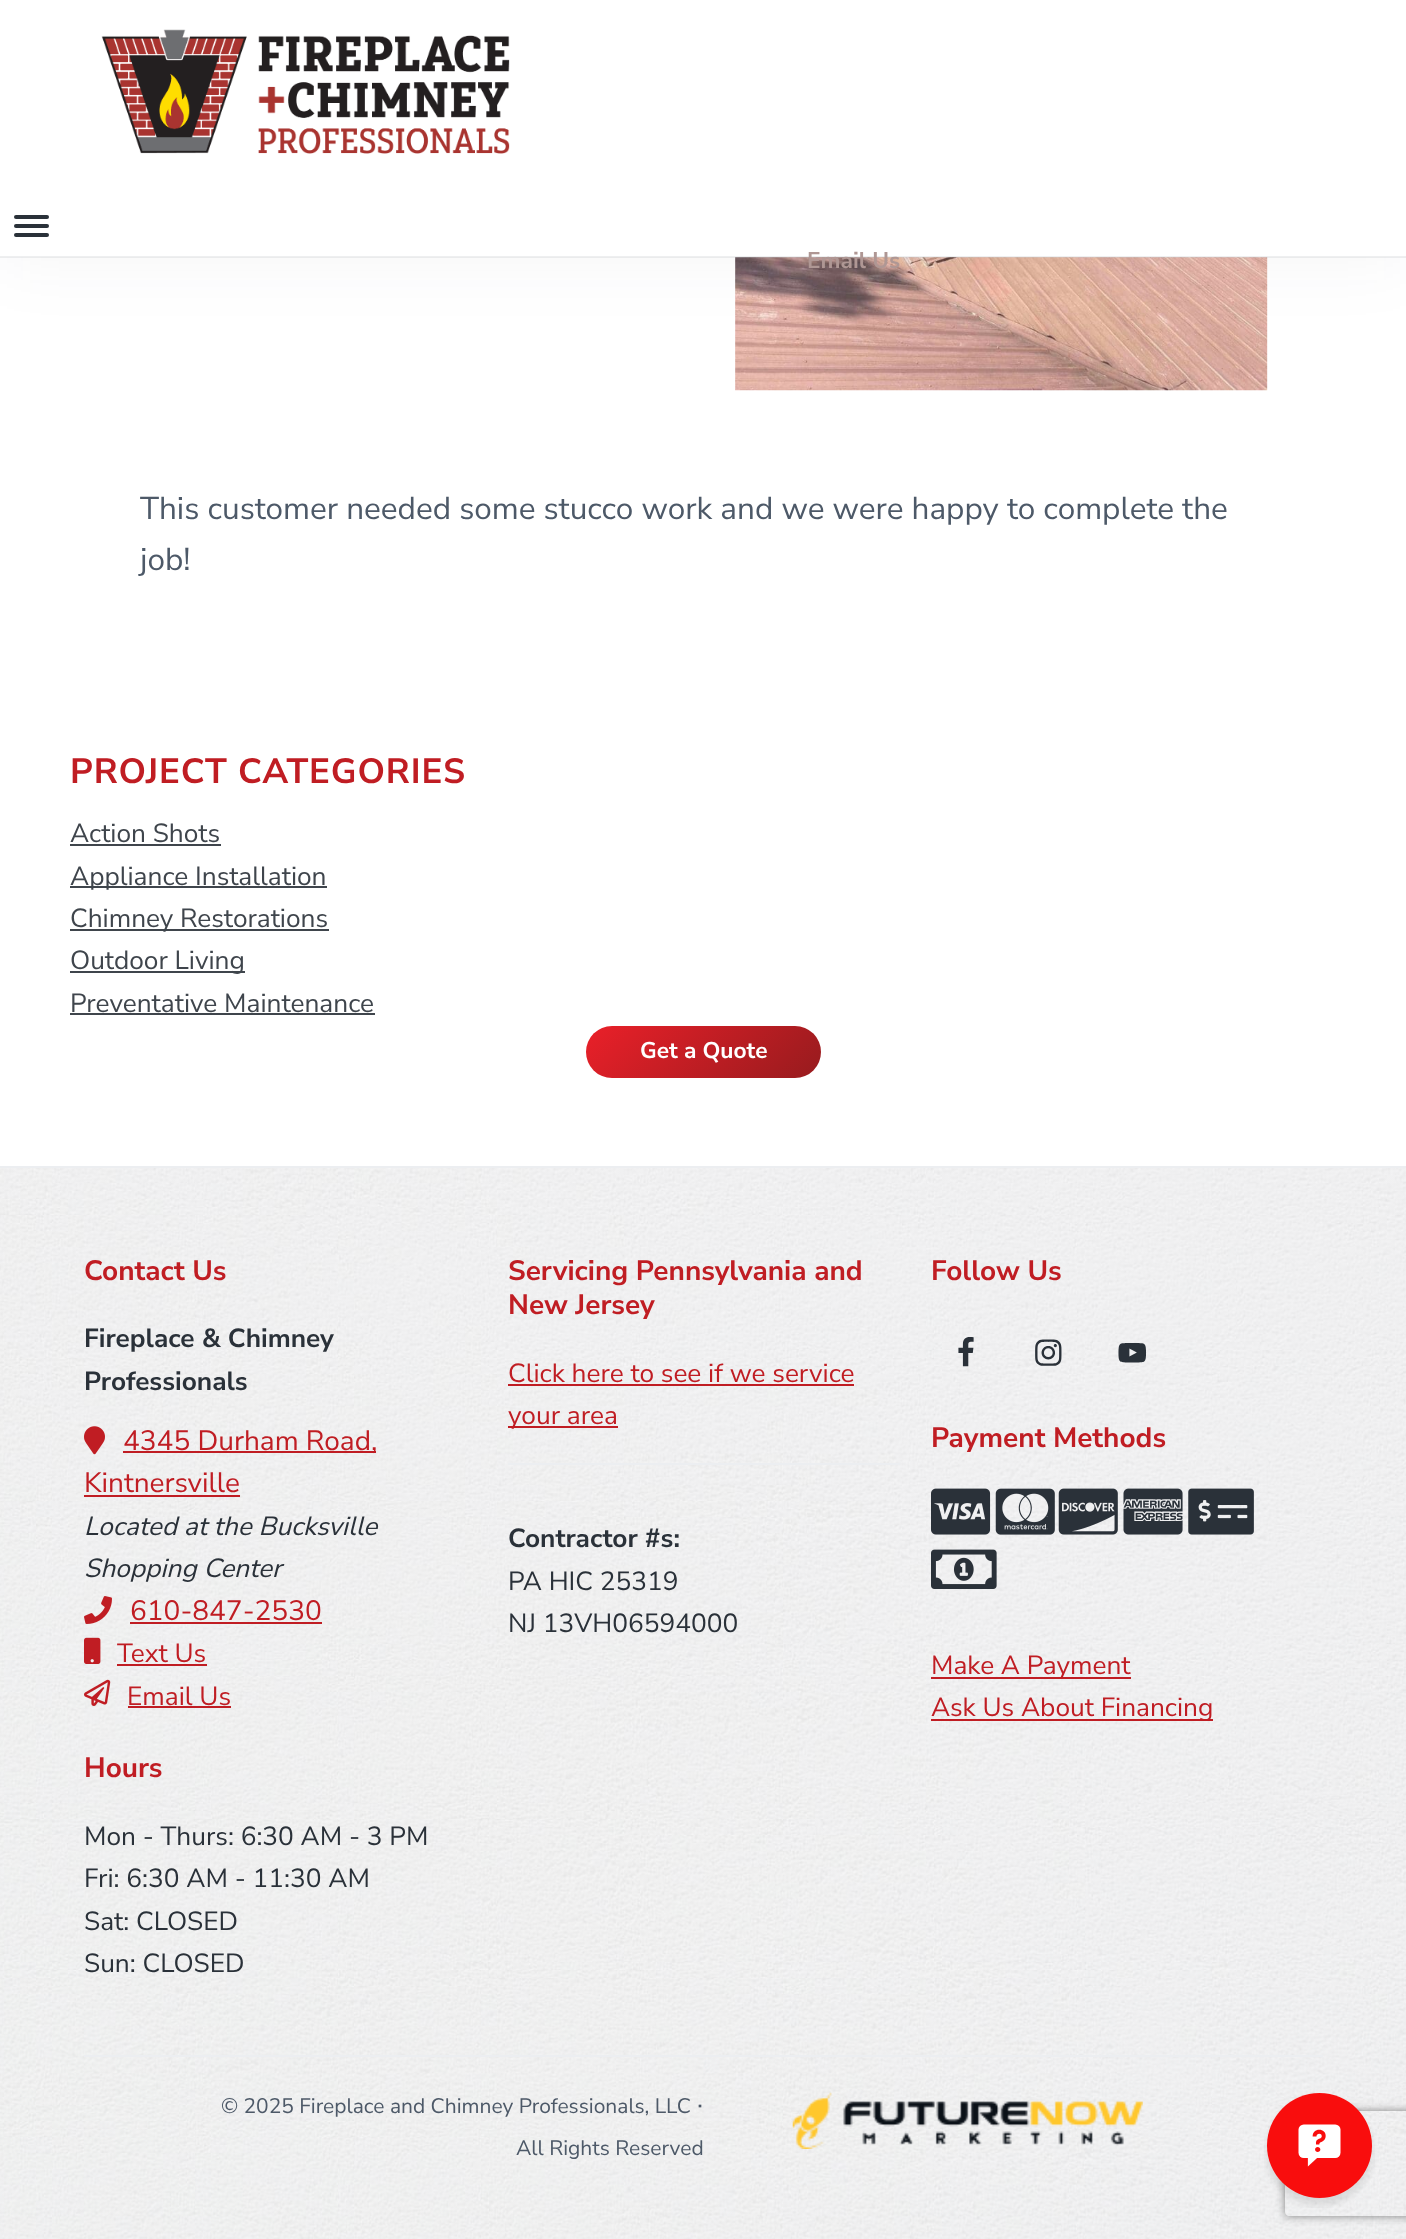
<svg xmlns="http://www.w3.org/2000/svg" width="1406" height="2239">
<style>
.a{font:bold 22.75px Nunito Sans;fill:#af9794}
.b{font:31.5px Nunito Sans;fill:#4d5968}
.c{font:bold 35px Nunito Sans;letter-spacing:0.9px;fill:#c01d23}
.d{font:26.25px Nunito Sans;fill:#3f454c}
.e{font:bold 22.75px Nunito Sans;fill:#fff}
.f{font:bold 28px Nunito Sans;fill:#c01d23}
.g{font:bold 26.25px Nunito Sans;fill:#2a3139}
.h{font:28px Nunito Sans;fill:#c01d23}
.i{font:italic 26.25px Nunito Sans;fill:#2a3139}
.j{font:26.25px Nunito Sans;fill:#c01d23}
.k{font:26.25px Nunito Sans;fill:#2a3139}
.l{font:21px Nunito Sans;fill:#4d5968}
.m{font:26.25px Nunito Sans;fill:#4d5968}
</style>
<defs>
<linearGradient id="g1" gradientUnits="userSpaceOnUse" x1="632" y1="980" x2="775" y2="1124"><stop offset="0" stop-color="#ea2029"/><stop offset="1" stop-color="#971b1e"/></linearGradient>
<clipPath id="clip1"><path d="M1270 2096h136v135h-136zm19 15h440c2 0 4 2 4 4v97c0 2-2 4-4 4h-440c-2 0-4-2-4-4v-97c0-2 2-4 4-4z" clip-rule="evenodd"/></clipPath>
</defs>
<rect width="100%" height="100%" fill="#fff"/>
<image href="2.png" x="735" y="257" width="533" height="134"/>
<path fill="#2a31390d" filter="blur(35px)" d="M0 0h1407v257H0z"/>
<path fill="#fff" d="M0 0h1406v257H0z"/>
<path fill="#c6cace4d" d="M0 256h1406v2H0z"/>
<rect fill="#2a3139" x="14" y="224" width="35" height="4" rx="2"/>
<rect fill="#2a3139" x="14" y="215" width="35" height="4" rx="2"/>
<rect fill="#2a3139" x="14" y="233" width="35" height="4" rx="2"/>
<image href="1.png" x="101" y="29" width="409" height="125"/>
<path fill="#3f454c" d="M70 844h151v2H70z"/>
<path fill="#3f454c" d="M70 886h257v2H70z"/>
<path fill="#3f454c" d="M70 929h259v2H70z"/>
<path fill="#3f454c" d="M70 971h175v2H70z"/>
<path fill="#3f454c" d="M70 1013h305v2H70z"/>
<rect fill="url(#g1)" x="586" y="1026" width="235" height="52" rx="26"/>
<image href="3.png" x="0" y="1168" width="1406" height="1071"/>
<path fill="#eceef1" d="M0 1166h1406v2H0z"/>
<image href="4.png" x="84" y="1426" width="21" height="29"/>
<path fill="#c01d23" d="M123 1451h253v2H123z"/>
<path fill="#c01d23" d="M84 1495h156v2H84z"/>
<image href="5.png" x="84" y="1596" width="28" height="28"/>
<path fill="#c01d23" d="M130 1622h192v2H130z"/>
<image href="6.png" x="84" y="1637" width="17" height="27"/>
<path fill="#c01d23" d="M117 1664h90v2H117z"/>
<image href="7.png" x="84" y="1679" width="27" height="27"/>
<path fill="#c01d23" d="M128 1706h103v2H128z"/>
<path fill="#c01d23" d="M508 1384h346v2H508z"/>
<path fill="#c01d23" d="M508 1426h110v2H508z"/>
<path fill="#eceef1" d="M508 1463h392v2H508z"/>
<image href="8.png" x="958" y="1337" width="16" height="30"/>
<image href="9.png" x="1035" y="1339" width="27" height="27"/>
<image href="10.png" x="1118" y="1343" width="29" height="20"/>
<image href="11.png" x="931" y="1488" width="60" height="47"/>
<image href="12.png" x="995" y="1488" width="60" height="47"/>
<image href="13.png" x="1058" y="1488" width="60" height="47"/>
<image href="14.png" x="1123" y="1488" width="60" height="47"/>
<image href="15.png" x="1188" y="1488" width="66" height="47"/>
<image href="16.png" x="931" y="1549" width="66" height="40"/>
<path fill="#c01d23" d="M931 1677h200v2H931z"/>
<path fill="#c01d23" d="M931 1719h282v2H931z"/>
<path fill="#eceef1" d="M84 2055h1239v2H84z"/>
<image href="17.png" x="792" y="2092" width="351" height="57"/>
<g clip-path="url(#clip1)">
<rect fill="#808080" filter="blur(4.5px)" x="1285" y="2111" width="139" height="105" rx="4"/>
</g>
<image href="18.png" x="1264" y="2093" width="111" height="115"/>
<text class="a" x="807" y="268">Email Us</text>
<text class="b" x="140" y="519">This customer needed some stucco work and we were happy to complete the</text>
<text class="b" x="140" y="570">job!</text>
<text class="c" x="70" y="783">PROJECT CATEGORIES</text>
<text class="d" x="70" y="842">Action Shots</text>
<text class="d" x="70" y="885">Appliance Installation</text>
<text class="d" x="70" y="927">Chimney Restorations</text>
<text class="d" x="70" y="969">Outdoor Living</text>
<text class="d" x="70" y="1012">Preventative Maintenance</text>
<text class="e" x="640" y="1058">Get a Quote</text>
<text class="f" x="84" y="1280">Contact Us</text>
<text class="g" x="84" y="1347">Fireplace &amp; Chimney</text>
<text class="g" x="84" y="1390">Professionals</text>
<text class="h" x="123" y="1450">4345 Durham Road,</text>
<text class="h" x="84" y="1492">Kintnersville</text>
<text class="i" x="84" y="1535">Located at the Bucksville</text>
<text class="i" x="84" y="1577">Shopping Center</text>
<text class="h" x="130" y="1620">610-847-2530</text>
<text class="j" x="117" y="1662">Text Us</text>
<text class="j" x="127" y="1705">Email Us</text>
<text class="f" x="84" y="1777">Hours</text>
<text class="k" x="84" y="1845">Mon - Thurs: 6:30 AM - 3 PM</text>
<text class="k" x="84" y="1887">Fri: 6:30 AM - 11:30 AM</text>
<text class="k" x="84" y="1930">Sat: CLOSED</text>
<text class="k" x="84" y="1972">Sun: CLOSED</text>
<text class="f" x="508" y="1280">Servicing Pennsylvania and</text>
<text class="f" x="508" y="1314">New Jersey</text>
<text class="j" x="508" y="1382">Click here to see if we service</text>
<text class="j" x="508" y="1424">your area</text>
<text class="g" x="508" y="1547">Contractor #s:</text>
<text class="k" x="508" y="1590">PA HIC 25319</text>
<text class="k" x="508" y="1632">NJ 13VH06594000</text>
<text class="f" x="931" y="1280">Follow Us</text>
<text class="f" x="931" y="1447">Payment Methods</text>
<text class="j" x="931" y="1674">Make A Payment</text>
<text class="j" x="931" y="1716">Ask Us About Financing</text>
<text class="l" x="221" y="2113">© 2025 Fireplace and Chimney Professionals, LLC</text>
<text class="m" x="697" y="2113">·</text>
<text class="l" x="516" y="2155">All Rights Reserved</text>
</svg>
